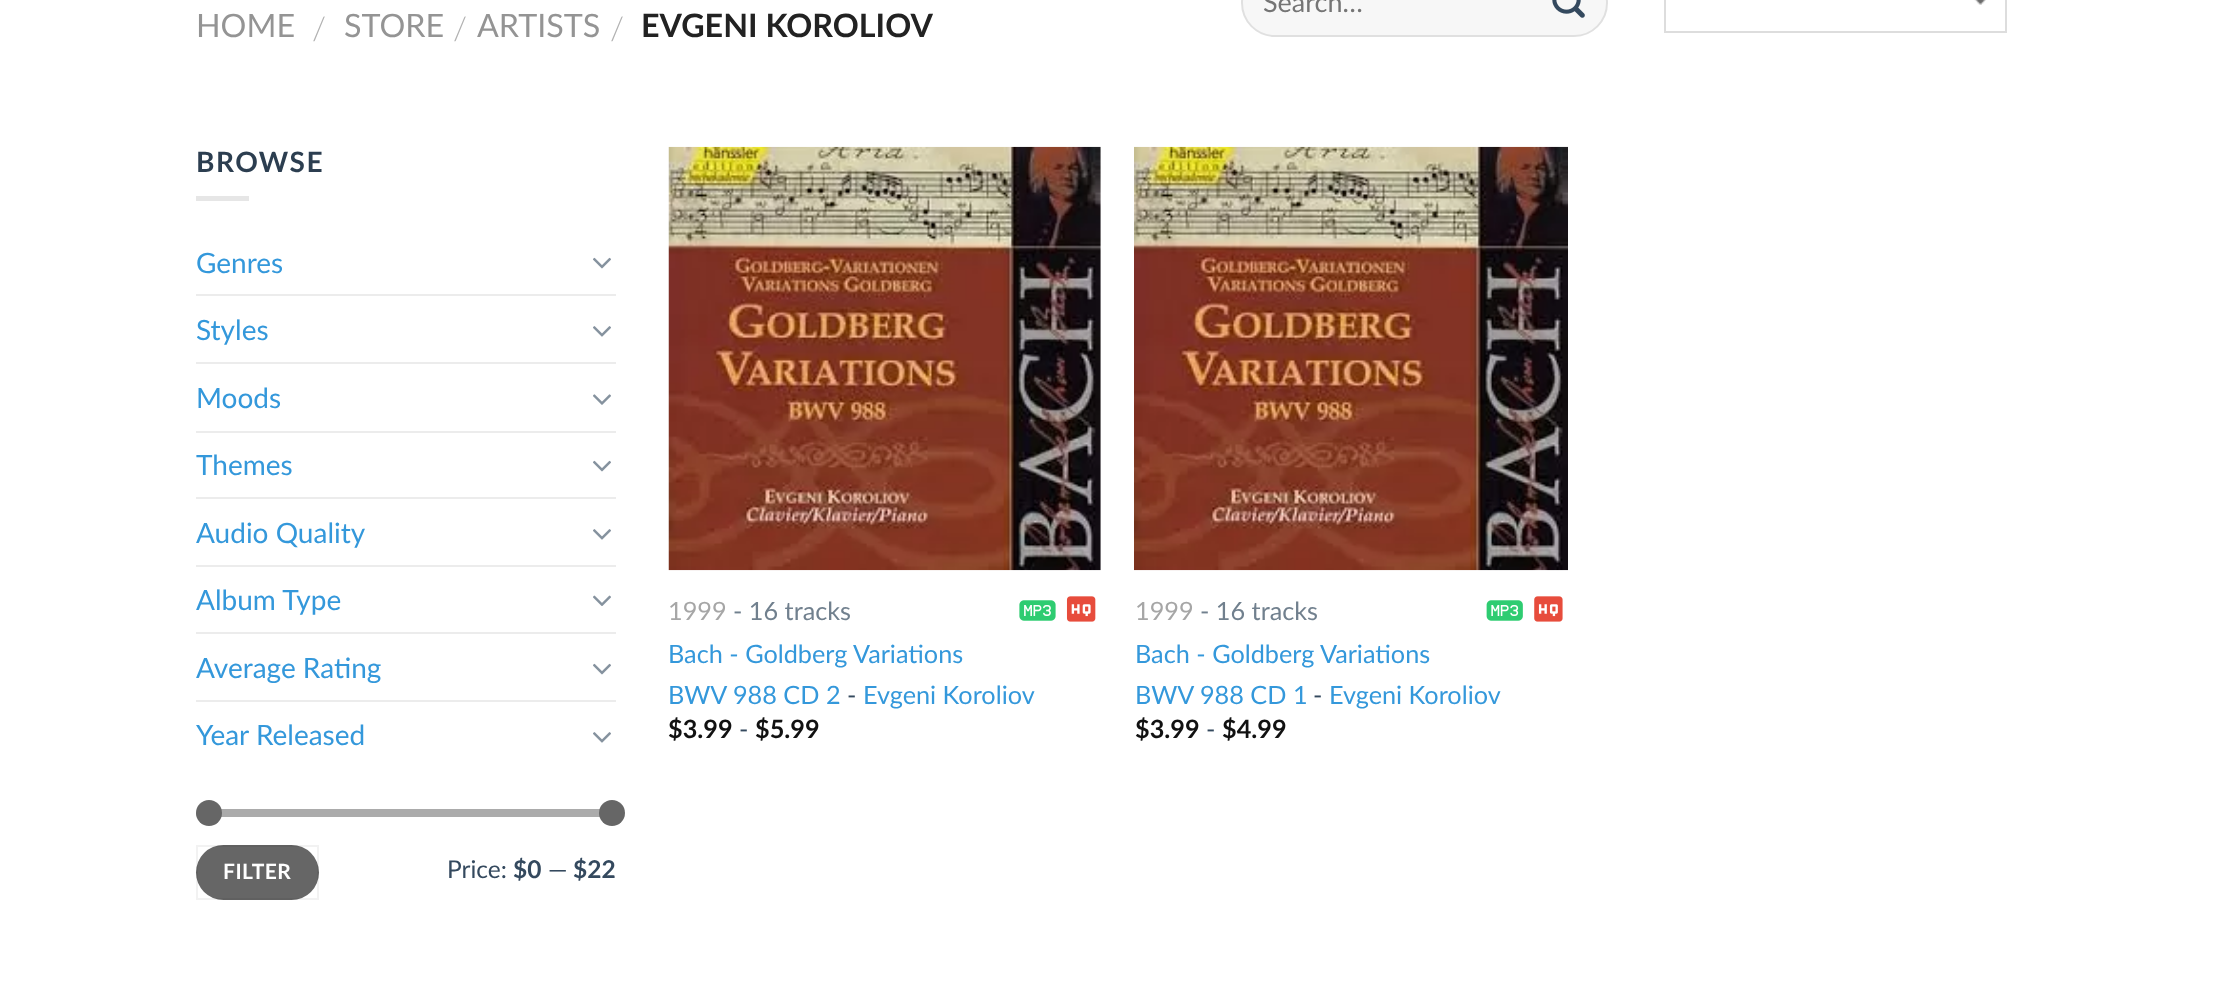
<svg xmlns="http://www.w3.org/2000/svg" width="2228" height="1004">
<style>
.a{font:27px Lato;fill:#757575}
.b{font:32.25px Lato;fill:#949494}
.c{font:300 32.25px Lato;fill:#b2b2b2}
.d{font:bold 32.25px Lato;fill:#222}
.e{font:bold 28px Lato;letter-spacing:1.5px;fill:#2c3e50}
.f{font:28px Lato;fill:#3498db}
.g{font:bold 21px Lato;letter-spacing:0.5px;fill:#fff}
.h{font:24.5px Lato;fill:#34495e}
.i{font:bold 24.5px Lato;fill:#34495e}
.j{font:25.25px Lato;fill:#a6a6a6}
.k{font:25.25px Lato;fill:#71808e}
.l{font:25.25px Lato;fill:#3498db}
.m{font:25.25px Lato;fill:#34495e}
.n{font:bold 25.25px Lato;fill:#111}
</style>
<rect width="100%" height="100%" fill="#fff"/>
<rect fill="#f7f7f7" x="1241" y="-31" width="367" height="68" rx="34"/>
<rect fill="none" stroke="#00000017" stroke-width="2" x="1242" y="-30" width="365" height="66" rx="33"/>
<image href="1.png" x="1552" y="0" width="33" height="18"/>
<image href="2.png" x="1974" y="0" width="12" height="5"/>
<path fill="none" stroke="#ddd" stroke-width="2" d="M1665 -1h341v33H1665z"/>
<path fill="#e6e6e6" d="M196 196h53v5H196z"/>
<image href="3.png" x="593" y="257" width="18" height="12"/>
<path fill="#ececec" d="M196 294h420v2H196z"/>
<image href="4.png" x="593" y="326" width="18" height="11"/>
<path fill="#ececec" d="M196 362h420v2H196z"/>
<image href="5.png" x="593" y="394" width="18" height="11"/>
<path fill="#ececec" d="M196 431h420v2H196z"/>
<image href="3.png" x="593" y="460" width="18" height="12"/>
<path fill="#ececec" d="M196 497h420v2H196z"/>
<image href="4.png" x="593" y="529" width="18" height="11"/>
<path fill="#ececec" d="M196 565h420v2H196z"/>
<image href="6.png" x="593" y="595" width="18" height="11"/>
<path fill="#ececec" d="M196 632h420v2H196z"/>
<image href="3.png" x="593" y="663" width="18" height="12"/>
<path fill="#ececec" d="M196 700h420v2H196z"/>
<image href="4.png" x="593" y="732" width="18" height="11"/>
<rect fill="#f1f1f1" x="196" y="809" width="420" height="8" rx="4"/>
<rect fill="#66666680" x="196" y="809" width="420" height="8" rx="4"/>
<circle fill="#666" cx="209" cy="813" r="13"/>
<circle fill="#666" cx="612" cy="813" r="13"/>
<rect fill="#666" x="196" y="845" width="123" height="55" rx="27.5"/>
<path fill="none" stroke="#0000000d" stroke-width="2" d="M197 846h121v53H197z"/>
<image href="7.png" x="668" y="146" width="433" height="425"/>
<image href="8.png" x="1019" y="600" width="37" height="21"/>
<image href="9.png" x="1066" y="596" width="30" height="26"/>
<image href="10.png" x="1134" y="146" width="434" height="425"/>
<image href="11.png" x="1486" y="600" width="37" height="21"/>
<image href="12.png" x="1534" y="596" width="29" height="26"/>
<text class="a" x="1263" y="12">Search…</text>
<text class="b" x="196" y="37">HOME</text>
<text class="c" x="312" y="40">/</text>
<text class="b" x="344" y="37">STORE</text>
<text class="c" x="453" y="40">/</text>
<text class="b" x="477" y="37">ARTISTS</text>
<text class="c" x="610" y="40">/</text>
<text class="d" x="641" y="37">EVGENI KOROLIOV</text>
<text class="e" x="196" y="172">BROWSE</text>
<text class="f" x="196" y="273">Genres</text>
<text class="f" x="196" y="340">Styles</text>
<text class="f" x="196" y="408">Moods</text>
<text class="f" x="196" y="475">Themes</text>
<text class="f" x="196" y="543">Audio Quality</text>
<text class="f" x="196" y="610">Album Type</text>
<text class="f" x="196" y="678">Average Rating</text>
<text class="f" x="196" y="745">Year Released</text>
<text class="g" x="223" y="879">FILTER</text>
<text class="h" x="447" y="878">Price:</text>
<text class="i" x="513" y="878">$0</text>
<text class="h" x="548" y="878">—</text>
<text class="i" x="573" y="878">$22</text>
<text class="j" x="668" y="620">1999</text>
<text class="k" x="733" y="620">- 16 tracks</text>
<text class="l" x="668" y="663">Bach - Goldberg Variations</text>
<text class="l" x="668" y="704">BWV 988 CD 2</text>
<text class="m" x="847" y="704">-</text>
<text class="l" x="863" y="704">Evgeni Koroliov</text>
<text class="n" x="668" y="738">$3.99</text>
<text class="m" x="739" y="738">-</text>
<text class="n" x="755" y="738">$5.99</text>
<text class="j" x="1135" y="620">1999</text>
<text class="k" x="1200" y="620">- 16 tracks</text>
<text class="l" x="1135" y="663">Bach - Goldberg Variations</text>
<text class="l" x="1135" y="704">BWV 988 CD 1</text>
<text class="m" x="1313" y="704">-</text>
<text class="l" x="1329" y="704">Evgeni Koroliov</text>
<text class="n" x="1135" y="738">$3.99</text>
<text class="m" x="1206" y="738">-</text>
<text class="n" x="1222" y="738">$4.99</text>
</svg>
